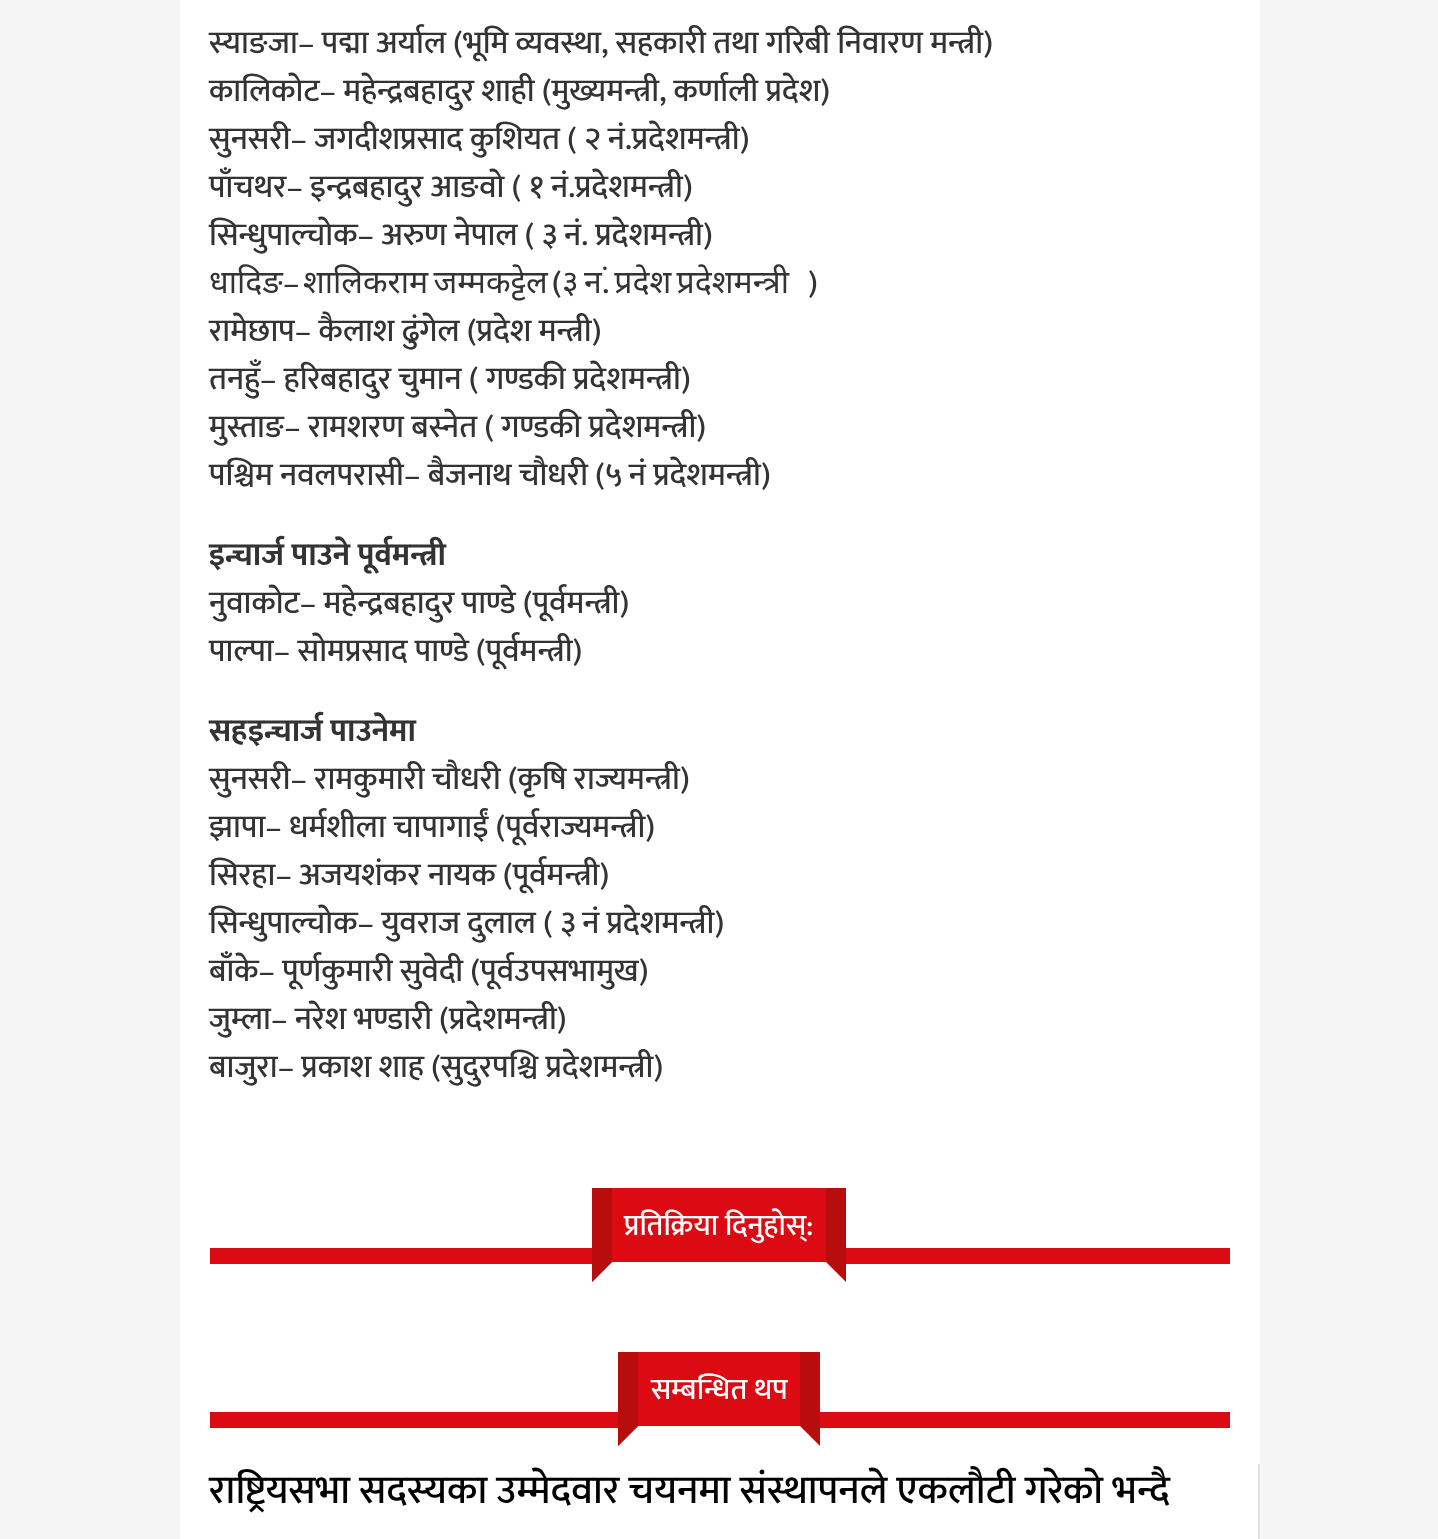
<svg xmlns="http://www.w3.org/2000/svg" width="1438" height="1539">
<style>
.a{font:500 32px Mukta;fill:#333}
.b{font:32px Noto Sans;fill:#333}
.c{font:bold 32px Mukta;fill:#333}
.d{font:500 30px Mukta;fill:#fff}
.e{font:500 40px Mukta;fill:#000}
</style>
<rect width="100%" height="100%" fill="#f5f5f5"/>
<path fill="#fff" d="M180 0h1080v1539H180z"/>
<path fill="#dc0b13" d="M210 1248h1020v16H210z"/>
<path fill="#dc0b13" d="M592 1188h254v94H592z"/>
<path fill="#b90d0d" d="M846 1188v94l-20-20v-74z"/>
<path fill="#fff" d="M846 1282h-254l20-20h214z"/>
<path fill="#b90d0d" d="M592 1282v-94h20v74z"/>
<path fill="#dc0b13" d="M210 1412h1020v16H210z"/>
<path fill="#dc0b13" d="M618 1352h202v94H618z"/>
<path fill="#b90d0d" d="M820 1352v94l-20-20v-74z"/>
<path fill="#fff" d="M820 1446h-202l20-20h162z"/>
<path fill="#b90d0d" d="M618 1446v-94h20v74z"/>
<path fill="#dee2e6" d="M1258 1464h2v75H1258z"/>
<text class="a" x="209" y="53">स्याङजा– पद्मा अर्याल (भूमि व्यवस्था, सहकारी तथा गरिबी निवारण मन्त्री)</text>
<text class="a" x="209" y="101">कालिकोट– महेन्द्रबहादुर शाही (मुख्यमन्त्री, कर्णाली प्रदेश)</text>
<text class="a" x="209" y="149">सुनसरी– जगदीशप्रसाद कुशियत ( २ नं.प्रदेशमन्त्री)</text>
<text class="a" x="209" y="197">पाँचथर– इन्द्रबहादुर आङवो ( १ नं.प्रदेशमन्त्री)</text>
<text class="a" x="209" y="245">सिन्धुपाल्चोक– अरुण नेपाल ( ३ नं. प्रदेशमन्त्री)</text>
<text class="b" x="209" y="293">धादिङ</text>
<text class="a" x="283" y="293">–</text>
<text class="b" x="303" y="293" word-spacing="-3">शालिकराम जम्मकट्टेल</text>
<text class="a" x="552" y="293">(</text>
<text class="b" x="562" y="293" word-spacing="-3">३ न</text>
<text class="a" x="808" y="293">)</text>
<text class="a" x="602" y="293">.</text>
<text class="b" x="609" y="293" word-spacing="-3">ं प्रदेश प्रदेशमन्त्री</text>
<text class="a" x="209" y="341">रामेछाप– कैलाश ढुंगेल (प्रदेश मन्त्री)</text>
<text class="a" x="209" y="389">तनहुँ– हरिबहादुर चुमान ( गण्डकी प्रदेशमन्त्री)</text>
<text class="a" x="209" y="437">मुस्ताङ– रामशरण बस्नेत ( गण्डकी प्रदेशमन्त्री)</text>
<text class="a" x="209" y="485">पश्चिम नवलपरासी– बैजनाथ चौधरी (५ नं प्रदेशमन्त्री)</text>
<text class="c" x="209" y="565">इन्चार्ज पाउने पूर्वमन्त्री</text>
<text class="a" x="209" y="613">नुवाकोट– महेन्द्रबहादुर पाण्डे (पूर्वमन्त्री)</text>
<text class="a" x="209" y="661">पाल्पा– सोमप्रसाद पाण्डे (पूर्वमन्त्री)</text>
<text class="c" x="209" y="741">सहइन्चार्ज पाउनेमा</text>
<text class="a" x="209" y="789">सुनसरी– रामकुमारी चौधरी (कृषि राज्यमन्त्री)</text>
<text class="a" x="209" y="837">झापा– धर्मशीला चापागाईं (पूर्वराज्यमन्त्री)</text>
<text class="a" x="209" y="885">सिरहा– अजयशंकर नायक (पूर्वमन्त्री)</text>
<text class="a" x="209" y="933">सिन्धुपाल्चोक– युवराज दुलाल ( ३ नं प्रदेशमन्त्री)</text>
<text class="a" x="209" y="981">बाँके– पूर्णकुमारी सुवेदी (पूर्वउपसभामुख)</text>
<text class="a" x="209" y="1029">जुम्ला– नरेश भण्डारी (प्रदेशमन्त्री)</text>
<text class="a" x="209" y="1077">बाजुरा– प्रकाश शाह (सुदुरपश्चि प्रदेशमन्त्री)</text>
<text class="d" x="624" y="1235">प्रतिक्रिया दिनुहोस्:</text>
<text class="d" x="651" y="1399">सम्बन्धित थप</text>
<text class="e" x="209" y="1503">राष्ट्रियसभा सदस्यका उम्मेदवार चयनमा संस्थापनले एकलौटी गरेको भन्दै</text>
</svg>
